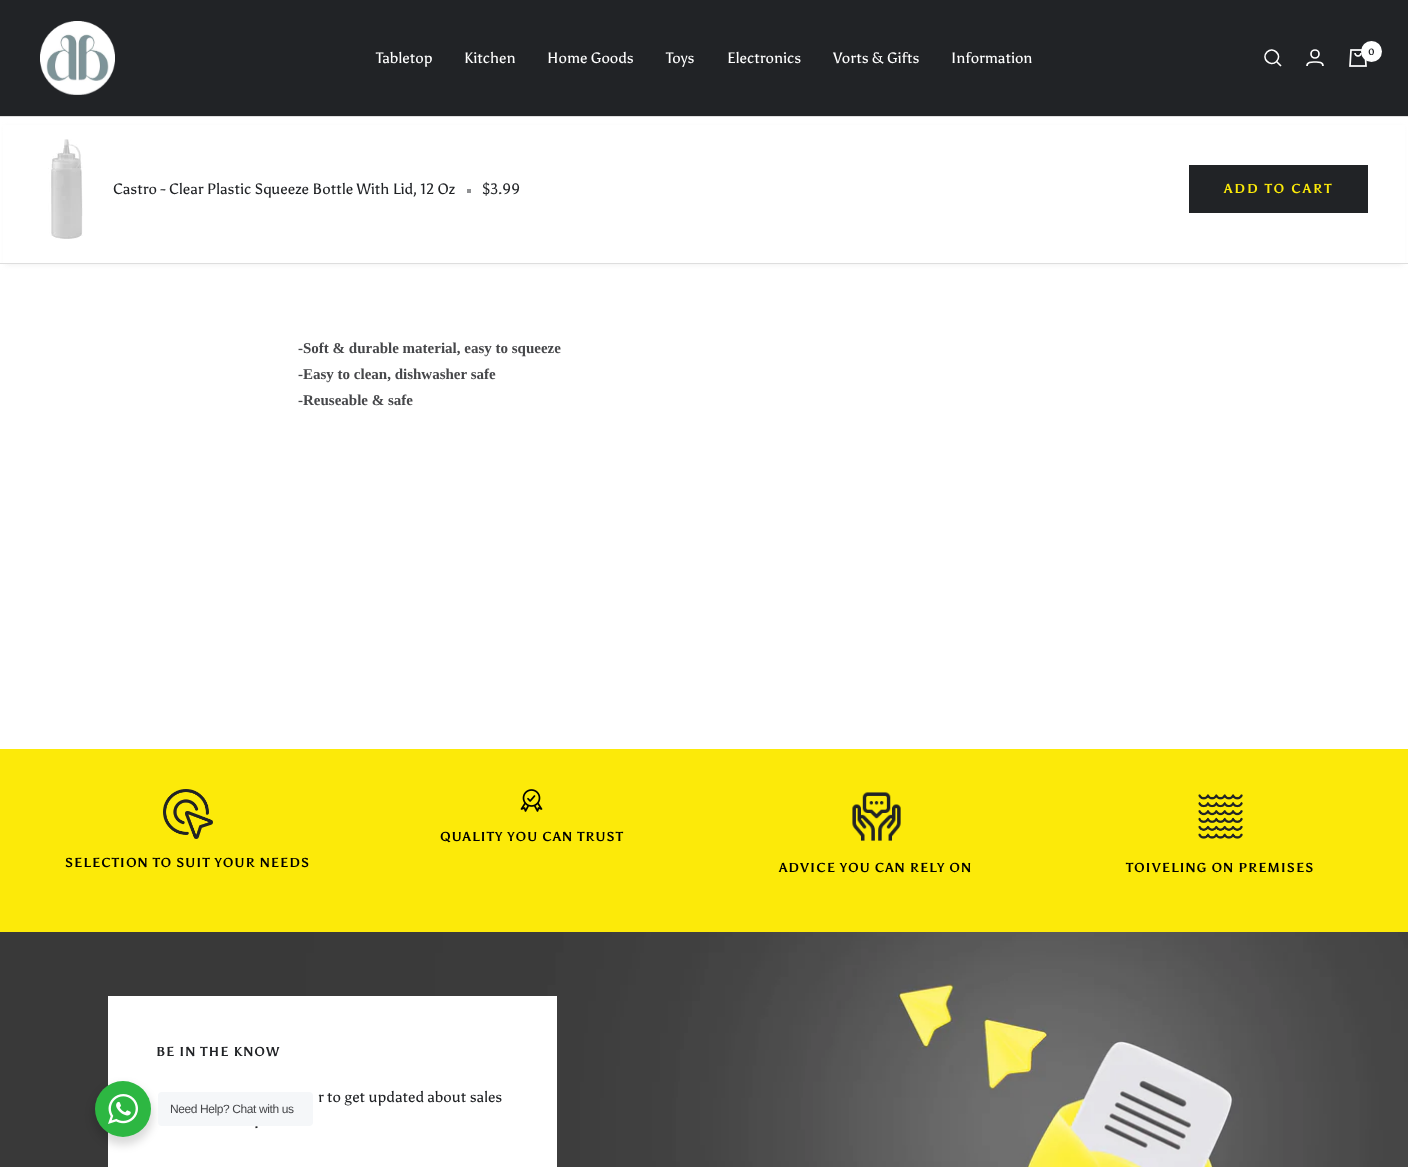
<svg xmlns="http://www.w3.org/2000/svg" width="1408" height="1167">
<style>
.a{font:15px Asul;fill:#fff}
.b{font:bold 9px Asul;fill:#212326}
.c{font:15px Asul;fill:#212326}
.d{font:bold 13px Asul;letter-spacing:2px;fill:#fcea09}
.e{font:bold 15px Liberation Serif;fill:#46474a}
.f{font:bold 13px Asul;letter-spacing:1px;fill:#000}
.g{font:bold 13px Asul;letter-spacing:1px;fill:#212326}
.h{font:12px Liberation Sans;letter-spacing:-0.4px;fill:#46474a}
</style>
<rect width="100%" height="100%" fill="#fff"/>
<path fill="#212326" d="M0 0h1408v116H0z"/>
<image href="1.png" x="40" y="21" width="75" height="74"/>
<path fill="none" stroke="#fff" stroke-width="1.7" d="M1276.5 61.5c6-6.5-3-15.5-9.5-9.5c-6 6.5 3 15.5 9.5 9.5zm0 0l4.5 4.5"/>
<circle fill="none" stroke="#fff" stroke-width="1.7" cx="1315" cy="54" r="4"/>
<path fill="none" stroke="#fff" stroke-width="1.7" d="M1307 66c0-4.5 5-4 8-4c3 0 8-.5 8 4"/>
<image href="2.png" x="1349" y="49" width="18" height="18"/>
<circle fill="#fff" cx="1371.5" cy="51.5" r="10.5"/>
<path fill="#dedede66" filter="blur(2.5px)" d="M5 127h1398v138H5z"/>
<path fill="#fff" d="M3 125h1402v138H3z"/>
<path fill="#dedede" d="M0 116h1408v1H0z"/>
<path fill="#dedede" d="M0 263h1408v1H0z"/>
<image href="3.png" x="48" y="139" width="35" height="100"/>
<path fill="#909193" d="M467 189h4v4H467z"/>
<path fill="#212326" d="M1189 165h179v48H1189z"/>
<path fill="#fcea09" d="M0 749h1408v183H0z"/>
<image href="4.png" x="520" y="789" width="23" height="23"/>
<image href="5.png" x="163" y="789" width="50" height="50"/>
<image href="6.png" x="852" y="792" width="49" height="49"/>
<image href="7.png" x="1198" y="794" width="45" height="45"/>
<image href="8.png" x="0" y="932" width="1408" height="235"/>
<path fill="#fff" d="M108 996h449v171H108z"/>
<rect fill="#00000024" filter="blur(4px)" x="93" y="1085" width="60" height="60" rx="30"/>
<circle fill="#2db742" cx="123" cy="1109" r="28"/>
<image href="9.png" x="108" y="1094" width="30" height="30"/>
<rect fill="#f5f7f9" x="158" y="1092" width="155" height="34" rx="4"/>
<text class="a" x="376" y="63">Tabletop</text>
<text class="a" x="464" y="63">Kitchen</text>
<text class="a" x="547" y="63">Home Goods</text>
<text class="a" x="666" y="63">Toys</text>
<text class="a" x="727" y="63">Electronics</text>
<text class="a" x="833" y="63">Vorts &amp; Gifts</text>
<text class="a" x="951" y="63">Information</text>
<text class="b" x="1368" y="55">0</text>
<text class="c" x="113" y="194">Castro - Clear Plastic Squeeze Bottle With Lid, 12 Oz</text>
<text class="c" x="482" y="194">$3.99</text>
<text class="d" x="1224" y="193">ADD TO CART</text>
<text class="e" x="298" y="353">-Soft &amp; durable material, easy to squeeze</text>
<text class="e" x="298" y="379">-Easy to clean, dishwasher safe</text>
<text class="e" x="298" y="405">-Reuseable &amp; safe</text>
<text class="f" x="440" y="841">QUALITY YOU CAN TRUST</text>
<text class="f" x="65" y="867">SELECTION TO SUIT YOUR NEEDS</text>
<text class="f" x="779" y="872">ADVICE YOU CAN RELY ON</text>
<text class="f" x="1126" y="872">TOIVELING ON PREMISES</text>
<text class="g" x="156" y="1056">BE IN THE KNOW</text>
<text class="c" x="318" y="1102">r to get updated about sales</text>
<text class="c" x="254" y="1128">.</text>
<text class="h" x="170" y="1113">Need Help? Chat with us</text>
</svg>
